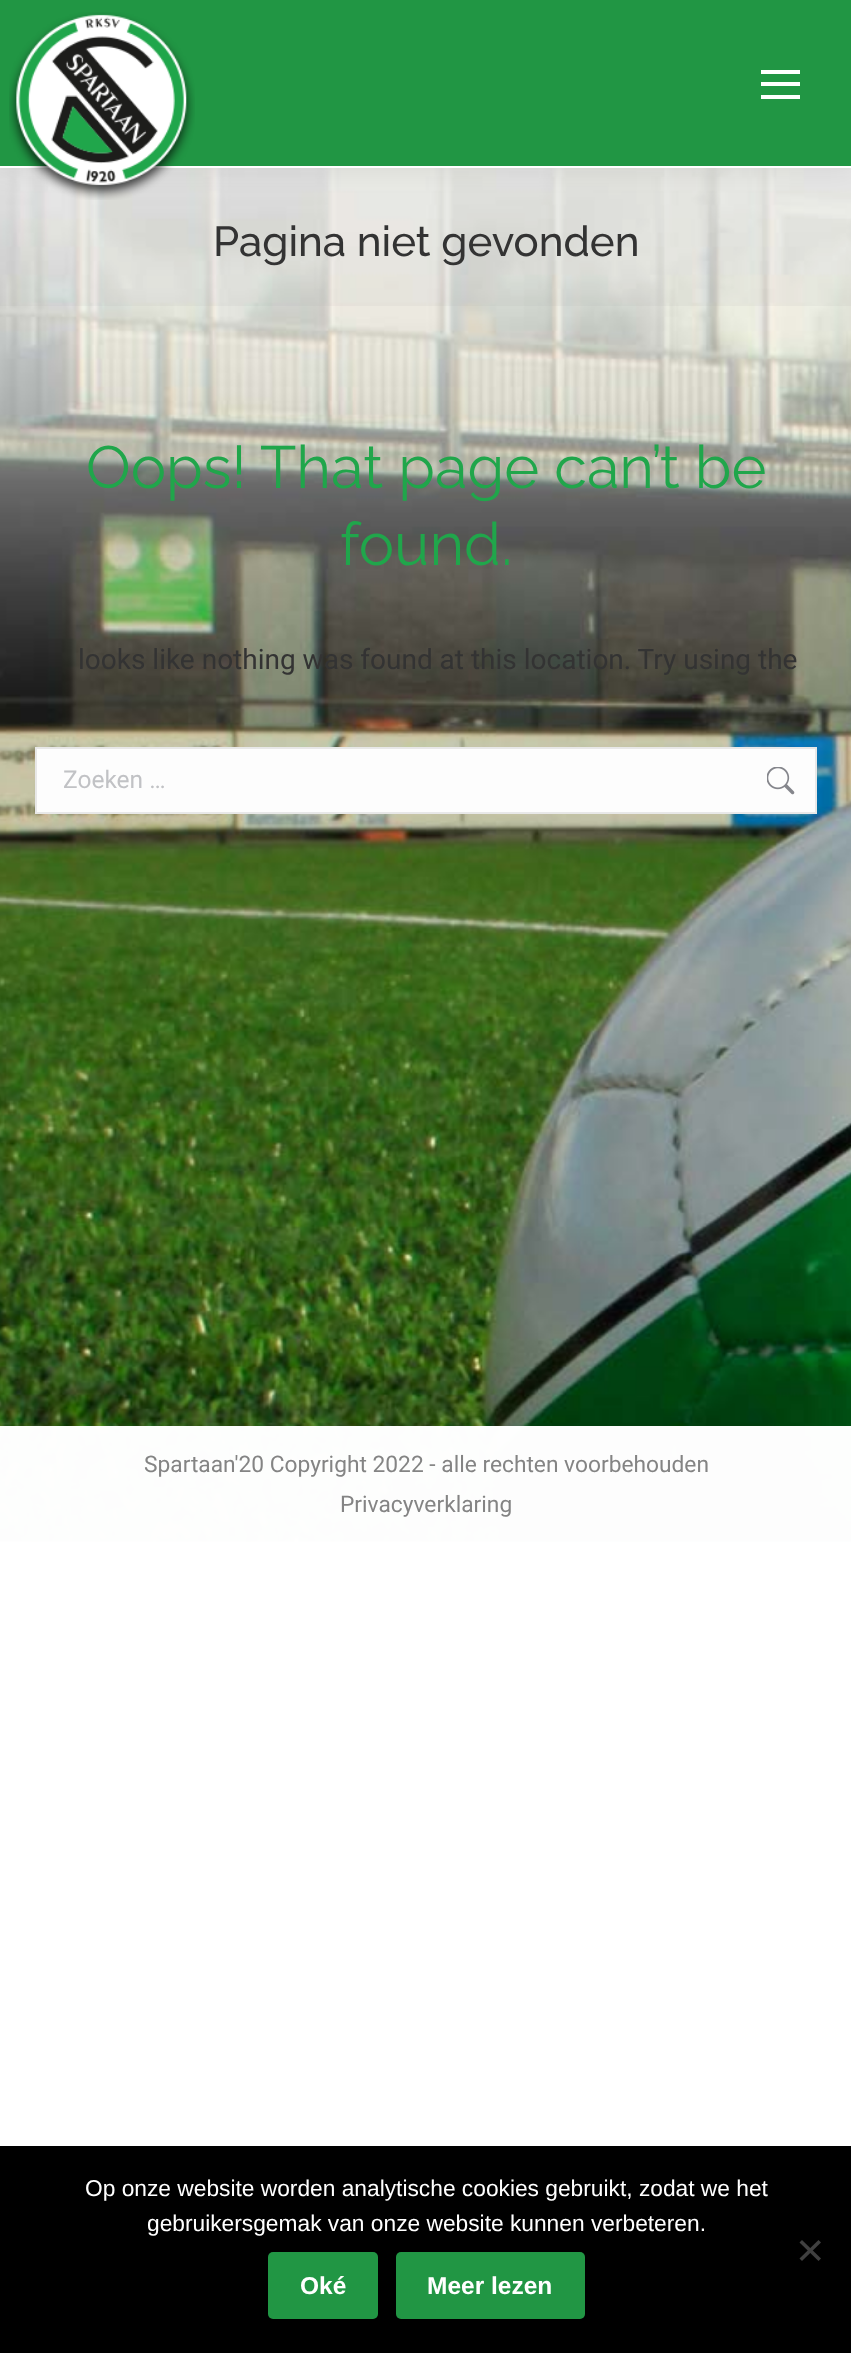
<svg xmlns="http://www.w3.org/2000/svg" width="851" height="2353">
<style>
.a{font:500 42px Raleway;fill:#333}
.b{font:59.5px Raleway;fill:#20a64b}
.c{font:28px Roboto;fill:#333}
.d{font:24.5px Roboto;fill:#c1c2c5}
.e{font:22.75px Roboto;fill:#848484}
.f{font:22.75px Liberation Sans;fill:#fff}
.g{font:bold 24.5px Liberation Sans;fill:#fff}
</style>
<rect width="100%" height="100%" fill="#fff"/>
<image href="1.png" x="0" y="168" width="851" height="1374"/>
<path fill="#aaaaaa1a" d="M0 168h851v138H0z"/>
<path fill="#00000012" filter="blur(13px)" d="M-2 -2h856v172H-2z"/>
<path fill="#219644" d="M0 0h851v166H0z"/>
<path fill="#fff" d="M0 166h851v2H0z"/>
<image href="2.png" x="9" y="12" width="186" height="188"/>
<path fill="#fff" d="M761 70h39v4H761z"/>
<path fill="#fff" d="M761 82h39v4H761z"/>
<path fill="#fff" d="M761 95h39v4H761z"/>
<path fill="#fdfdfd" stroke="#e8e8e8" stroke-width="2" d="M36 748h780v65H36z"/>
<image href="3.png" x="767" y="767" width="28" height="28"/>
<path fill="#ffffffe6" d="M0 1426h851v116H0z"/>
<path fill="#ffffffe6" d="M0 1426h851v116H0z"/>
<path fill="#000" d="M0 2146h851v207H0z"/>
<path fill="#404040" d="M818.5 2240l2.5 2.5l-19 18.5l-2.5-2.5z"/>
<path fill="#404040" d="M799.5 2242.5l2.5-2.5l19 18.5l-2.5 2.5z"/>
<rect fill="#219644" x="268" y="2252" width="110" height="67" rx="5"/>
<rect fill="#219644" x="396" y="2252" width="189" height="67" rx="5"/>
<text class="a" x="213" y="256">Pagina niet gevonden</text>
<text class="b" x="86" y="488">Oops! That page can’t be</text>
<text class="b" x="340" y="565">found.</text>
<text class="c" x="78" y="669">looks like nothing was found at this location. Try using the</text>
<text class="d" x="63" y="788">Zoeken …</text>
<text class="e" x="144" y="1472">Spartaan'20 Copyright 2022 - alle rechten voorbehouden</text>
<text class="e" x="340" y="1512">Privacyverklaring</text>
<text class="f" x="85" y="2196">Op onze website worden analytische cookies gebruikt, zodat we het</text>
<text class="f" x="147" y="2231">gebruikersgemak van onze website kunnen verbeteren.</text>
<text class="g" x="300" y="2294">Oké</text>
<text class="g" x="427" y="2294">Meer lezen</text>
</svg>
